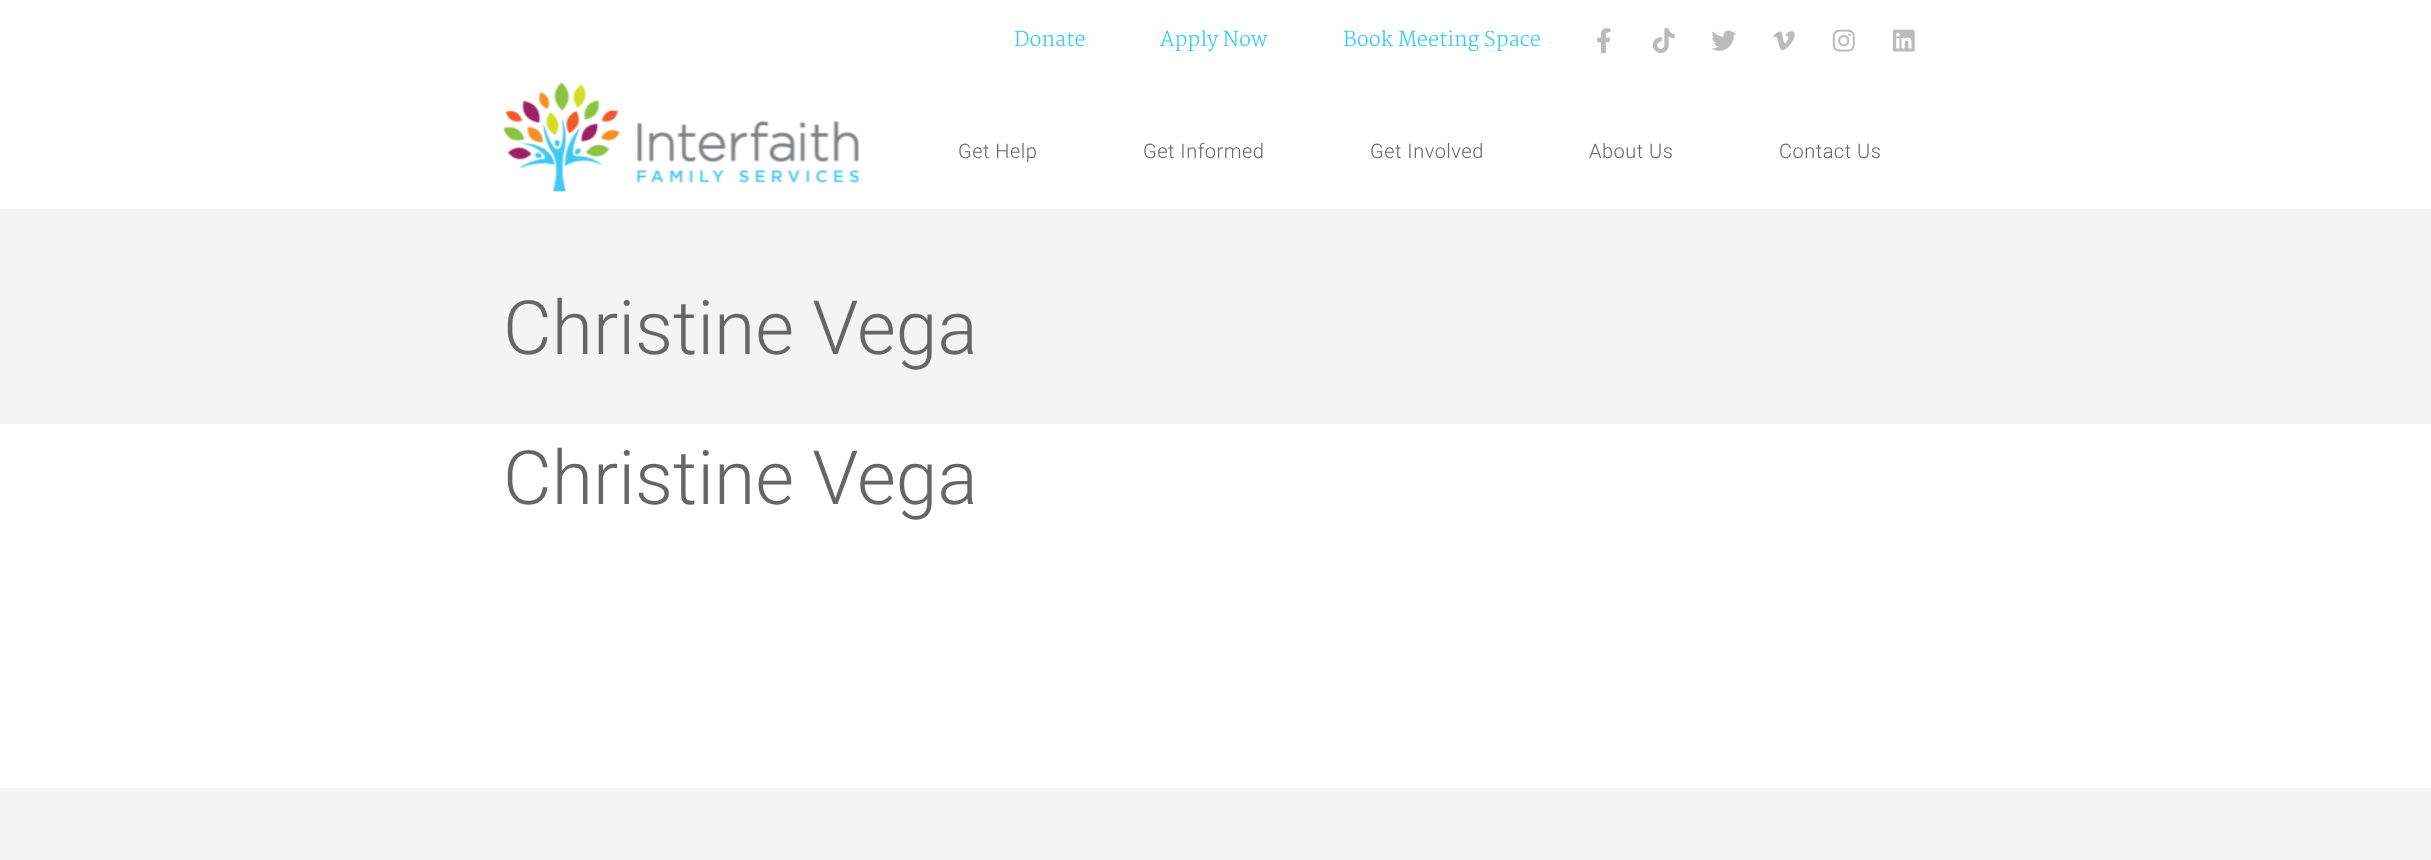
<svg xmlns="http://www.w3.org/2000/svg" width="2431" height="860">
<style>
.a{font:300 20px Martel;fill:#3cf}
.b{font:300 20px Roboto;letter-spacing:0.5px;fill:#666}
.c{font:300 75px Roboto;fill:#666}
</style>
<rect width="100%" height="100%" fill="#fff"/>
<image href="1.png" x="1597" y="28" width="14" height="26"/>
<image href="2.png" x="1652" y="28" width="23" height="26"/>
<image href="3.png" x="1711" y="30" width="25" height="21"/>
<image href="4.png" x="1773" y="31" width="22" height="20"/>
<image href="5.png" x="1832" y="29" width="23" height="23"/>
<image href="6.png" x="1892" y="29" width="23" height="23"/>
<image href="7.png" x="503" y="82" width="356" height="110"/>
<path fill="#f4f4f4" d="M0 209h2431v215H0z"/>
<path fill="#f4f4f4" d="M0 788h2431v72H0z"/>
<text class="a" x="1014" y="46">Donate</text>
<text class="a" x="1160" y="46">Apply Now</text>
<text class="a" x="1343" y="46">Book Meeting Space</text>
<text class="b" x="958" y="158">Get Help</text>
<text class="b" x="1143" y="158">Get Informed</text>
<text class="b" x="1370" y="158">Get Involved</text>
<text class="b" x="1589" y="158">About Us</text>
<text class="b" x="1779" y="158">Contact Us</text>
<text class="c" x="503" y="354">Christine Vega</text>
<text class="c" x="503" y="504">Christine Vega</text>
</svg>
